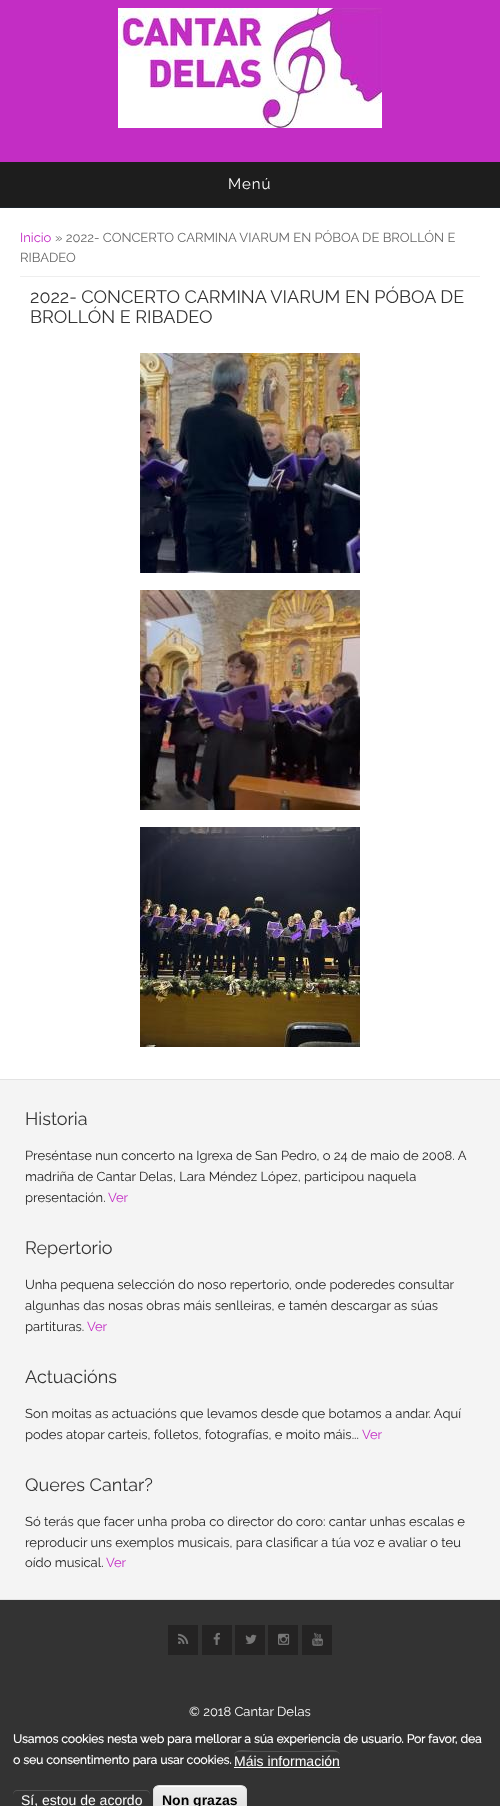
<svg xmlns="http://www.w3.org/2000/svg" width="500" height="1806">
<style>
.a{font:100 15px Raleway;letter-spacing:1px;fill:#fff}
.b{font:100 13px Raleway;fill:#c32dc4}
.c{font:100 13px Raleway;fill:#666}
.d{font:100 18px Raleway;fill:#333}
.e{font:100 13px Raleway;fill:#222}
.f{font:100 13px Raleway;fill:#fff}
.g{font:bold 12px Raleway;fill:#fff}
.h{font:14px Liberation Sans;fill:#fff}
.i{font:bold 14px Liberation Sans;fill:#000}
</style>
<defs>
<clipPath id="clip1"><rect x="153" y="1785" width="94" height="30" rx="6"/></clipPath>
<linearGradient id="g1" gradientUnits="userSpaceOnUse" x1="200" y1="1786" x2="200" y2="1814"><stop offset="0.05" stop-color="#ededed"/><stop offset="1" stop-color="#dfdfdf"/></linearGradient>
</defs>
<rect width="100%" height="100%" fill="#fff"/>
<path fill="#c32dc4" d="M0 0h500v162H0z"/>
<image href="1.png" x="118" y="8" width="264" height="120"/>
<path fill="#1d1d1d" d="M0 162h500v45H0z"/>
<path fill="#1e262d" d="M0 207h500v1H0z"/>
<path fill="#eee" d="M20 276h460v1H20z"/>
<image href="2.png" x="140" y="353" width="220" height="220"/>
<image href="3.png" x="140" y="590" width="220" height="220"/>
<image href="4.png" x="140" y="827" width="220" height="220"/>
<path fill="#f4f4f4" d="M0 1080h500v519H0z"/>
<path fill="#e3e3e3" d="M0 1079h500v1H0z"/>
<path fill="#e3e3e3" d="M0 1599h500v1H0z"/>
<path fill="#333" d="M0 1600h500v206H0z"/>
<path fill="#242323" d="M168 1625h30v30H168z"/>
<image href="5.png" x="178" y="1633" width="11" height="11"/>
<path fill="#242323" d="M202 1625h30v30H202z"/>
<image href="6.png" x="213" y="1632" width="7" height="13"/>
<path fill="#242323" d="M235 1625h30v30H235z"/>
<image href="7.png" x="245" y="1634" width="12" height="10"/>
<path fill="#242323" d="M268 1625h30v30H268z"/>
<image href="8.png" x="278" y="1633" width="12" height="12"/>
<path fill="#242323" d="M302 1625h30v30H302z"/>
<image href="9.png" x="312" y="1632" width="11" height="14"/>
<path fill="#525252" d="M238 1752h98c2 0 4 2 4 4c0-9-16-5-20-5h-66c-4 0-20-4-20 5c0-2 2-4 4-4z"/>
<path fill="#fff" d="M234 1767h106v1H234z"/>
<path fill="#525252" d="M17 1791h129c2 0 4 2 4 4v-1c0-2-2-4-4-4h-129c-2 0-4 2-4 4v1c0-2 2-4 4-4z"/>
<g clip-path="url(#clip1)">
<path fill="url(#g1)" d="M153 1786h94v20H153z"/>
</g>
<path fill="#fff" d="M159 1787h82c3 0 5 2 5 5c0-9-13-6-19-6h-54c-6 0-19-3-19 6c0-3 2-5 5-5z"/>
<rect fill="none" stroke="#dcdcdc" x="153.5" y="1785.5" width="93" height="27" rx="5.5"/>
<text class="a" x="228" y="189">Menú</text>
<text class="b" x="20" y="242">Inicio</text>
<text class="c" x="55" y="242">» 2022- CONCERTO CARMINA VIARUM EN PÓBOA DE BROLLÓN E</text>
<text class="c" x="20" y="262">RIBADEO</text>
<text class="d" x="30" y="303">2022- CONCERTO CARMINA VIARUM EN PÓBOA DE</text>
<text class="d" x="30" y="323">BROLLÓN E RIBADEO</text>
<text class="d" x="25" y="1125">Historia</text>
<text class="e" x="25" y="1160">Preséntase nun concerto na Igrexa de San Pedro, o 24 de maio de 2008. A</text>
<text class="e" x="25" y="1181">madriña de Cantar Delas, Lara Méndez López, participou naquela</text>
<text class="e" x="25" y="1202">presentación.</text>
<text class="b" x="108" y="1202">Ver</text>
<text class="d" x="25" y="1254">Repertorio</text>
<text class="e" x="25" y="1289">Unha pequena selección do noso repertorio, onde poderedes consultar</text>
<text class="e" x="25" y="1310">algunhas das nosas obras máis senlleiras, e tamén descargar as súas</text>
<text class="e" x="25" y="1331">partituras.</text>
<text class="b" x="87" y="1331">Ver</text>
<text class="d" x="25" y="1383">Actuacións</text>
<text class="e" x="25" y="1418">Son moitas as actuacións que levamos desde que botamos a andar. Aquí</text>
<text class="e" x="25" y="1439">podes atopar carteis, folletos, fotografías, e moito máis...</text>
<text class="b" x="362" y="1439">Ver</text>
<text class="d" x="25" y="1491">Queres Cantar?</text>
<text class="e" x="25" y="1526">Só terás que facer unha proba co director do coro: cantar unhas escalas e</text>
<text class="e" x="25" y="1547">reproducir uns exemplos musicais, para clasificar a túa voz e avaliar o teu</text>
<text class="e" x="25" y="1567">oído musical.</text>
<text class="b" x="106" y="1567">Ver</text>
<text class="f" x="189" y="1716">© 2018 Cantar Delas</text>
<text class="g" x="13" y="1743">Usamos cookies nesta web para mellorar a súa experiencia de usuario. Por favor, dea</text>
<text class="g" x="13" y="1764">o seu consentimento para usar cookies.</text>
<text class="h" x="234" y="1766">Máis información</text>
<text class="h" x="21" y="1805">Sí, estou de acordo</text>
<text class="i" x="162" y="1805">Non grazas</text>
</svg>
